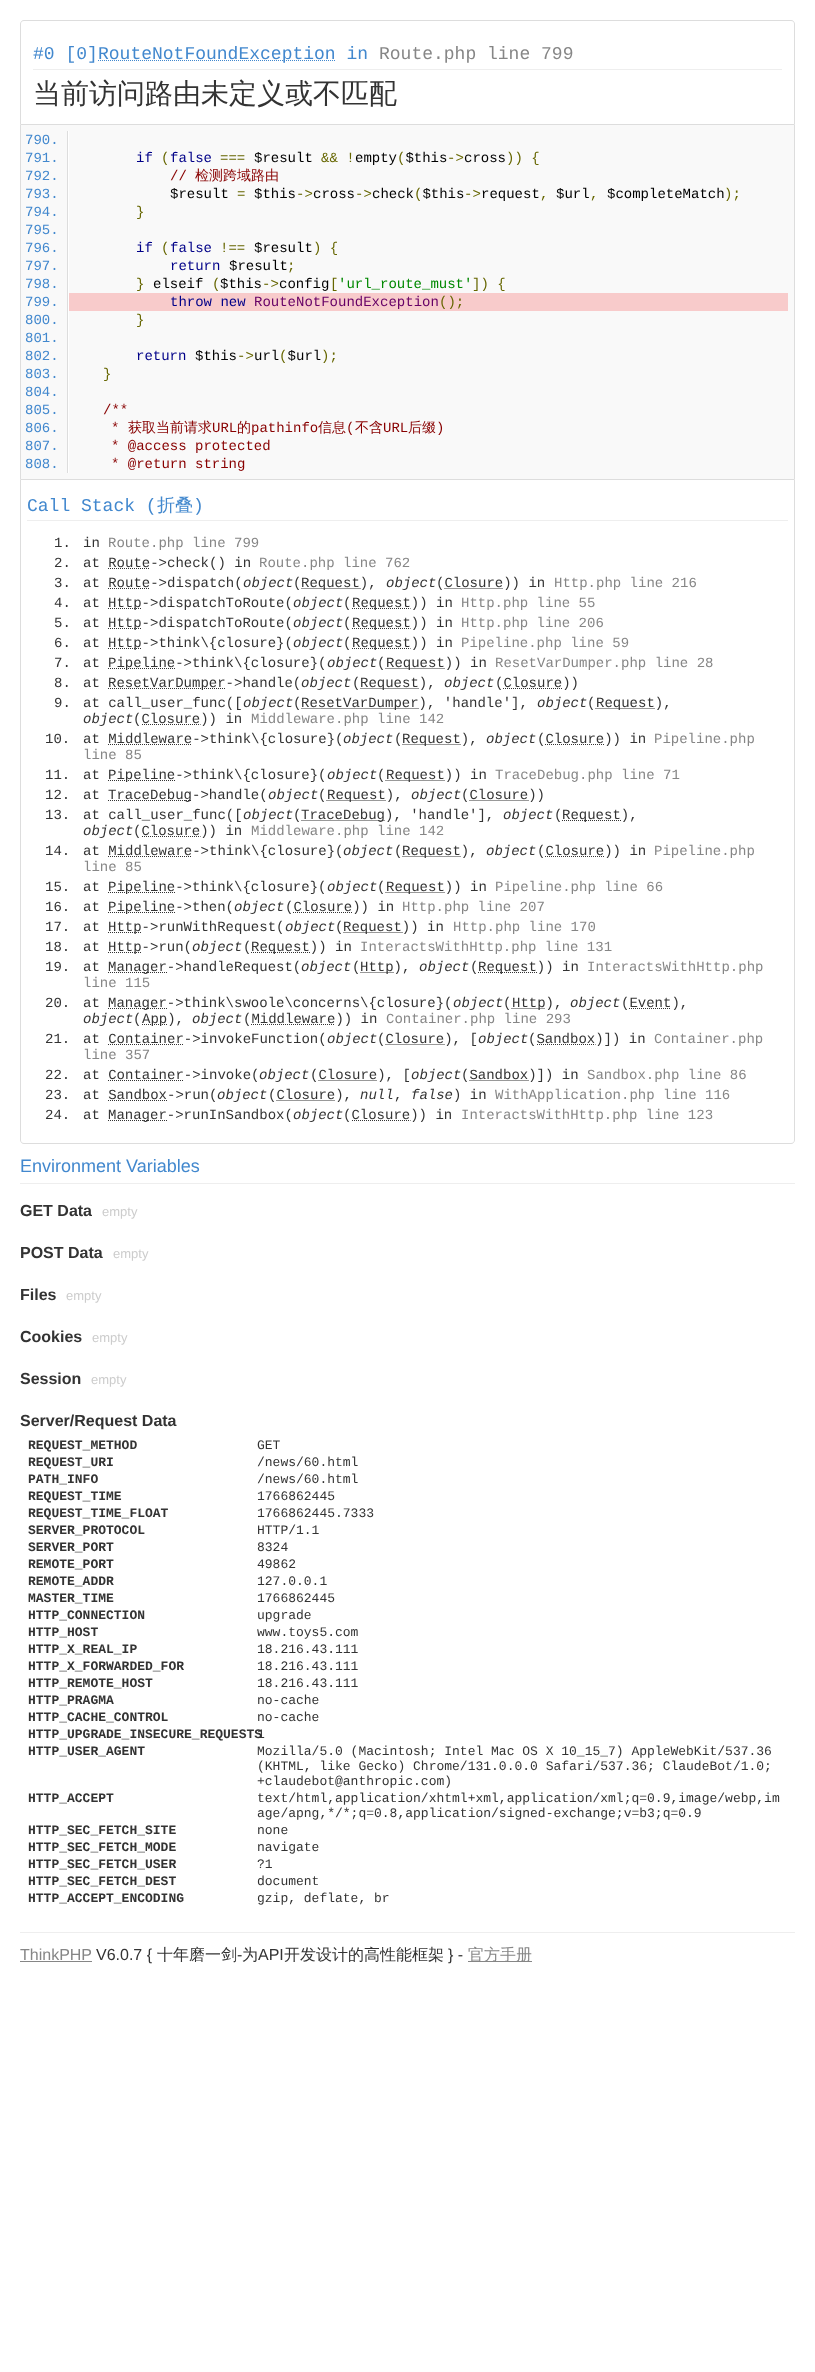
<svg xmlns="http://www.w3.org/2000/svg" width="815" height="2372">
<style>
.a{font:18px Liberation Mono;fill:#4288ce}
.b{font:18px Liberation Mono;fill:#868686}
.c{font:500 28px WenQuanYi Zen Hei;fill:#333}
.d{font:14px Liberation Mono;fill:#4288ce}
.e{font:14px Liberation Mono;fill:#008}
.f{font:14px Liberation Mono;fill:#660}
.g{font:14px Liberation Mono;fill:#000}
.h{font:14px Liberation Mono;fill:#800}
.i{font:500 14px WenQuanYi Zen Hei;fill:#800}
.j{font:14px Liberation Mono;fill:#080}
.k{font:14px Liberation Mono;fill:#606}
.l{font:500 18px WenQuanYi Zen Hei;fill:#4288ce}
.m{font:14px Liberation Mono;fill:#333}
.n{font:14px Liberation Mono;fill:#868686}
.o{font:italic 14px Liberation Mono;fill:#333}
.p{font:18px Liberation Sans;fill:#4288ce}
.q{font:bold 16px Liberation Sans;fill:#333}
.r{font:13px Liberation Sans;fill:#ccc}
.s{font:bold 13px Liberation Mono;fill:#333}
.t{font:13px Liberation Mono;fill:#333}
.u{font:16px Liberation Sans;fill:#868686}
.v{font:16px Liberation Sans;fill:#333}
.w{font:500 16px WenQuanYi Zen Hei;fill:#333}
.x{font:500 16px WenQuanYi Zen Hei;fill:#868686}
</style>
<rect width="100%" height="100%" fill="#fff"/>
<path fill="#ddd" fill-rule="evenodd" d="M24 20h767c2 0 4 2 4 4v100h-775v-100c0-2 2-4 4-4zm0 1h767c2 0 3 1 3 3v100h-773v-100c0-2 1-3 3-3z"/>
<path fill="#eee" d="M33 69h749v1H33z"/>
<path fill="none" stroke="#4288ce" stroke-dasharray="1 1" d="M98 60.5h237.5"/>
<path fill="#f9f9f9" stroke="#ddd" d="M20.5 124.5h774v355H20.5z"/>
<path fill="#ddd" d="M67 131h1v342H67z"/>
<path fill="#fff" d="M68 131h1v342H68z"/>
<path fill="#f8cbcb" d="M69 293h719v18H69z"/>
<path fill="#ddd" fill-rule="evenodd" d="M20 480h775v660c0 2-2 4-4 4h-767c-2 0-4-2-4-4zm1 0h773v660c0 2-1 3-3 3h-767c-2 0-3-1-3-3z"/>
<path fill="#eee" d="M27 520h761v1H27z"/>
<path fill="none" stroke="#333" stroke-dasharray="1 1" d="M108 568.5h42"/>
<path fill="none" stroke="#333" stroke-dasharray="1 1" d="M301.5 588.5h59"/>
<path fill="none" stroke="#333" stroke-dasharray="1 1" d="M108 588.5h42"/>
<path fill="none" stroke="#333" stroke-dasharray="1 1" d="M444.5 588.5h58.5"/>
<path fill="none" stroke="#333" stroke-dasharray="1 1" d="M108 608.5h34"/>
<path fill="none" stroke="#333" stroke-dasharray="1 1" d="M352 608.5h58.5"/>
<path fill="none" stroke="#333" stroke-dasharray="1 1" d="M108 628.5h34"/>
<path fill="none" stroke="#333" stroke-dasharray="1 1" d="M352 628.5h58.5"/>
<path fill="none" stroke="#333" stroke-dasharray="1 1" d="M108 648.5h34"/>
<path fill="none" stroke="#333" stroke-dasharray="1 1" d="M352 648.5h58.5"/>
<path fill="none" stroke="#333" stroke-dasharray="1 1" d="M108 668.5h67.5"/>
<path fill="none" stroke="#333" stroke-dasharray="1 1" d="M385.5 668.5h59"/>
<path fill="none" stroke="#333" stroke-dasharray="1 1" d="M108 688.5h118"/>
<path fill="none" stroke="#333" stroke-dasharray="1 1" d="M360.5 688.5h58.5"/>
<path fill="none" stroke="#333" stroke-dasharray="1 1" d="M503 688.5h59"/>
<path fill="none" stroke="#333" stroke-dasharray="1 1" d="M301.5 708.5h117.5"/>
<path fill="none" stroke="#333" stroke-dasharray="1 1" d="M595.5 708.5h59"/>
<path fill="none" stroke="#333" stroke-dasharray="1 1" d="M142 724.5h58.5"/>
<path fill="none" stroke="#333" stroke-dasharray="1 1" d="M402.5 744.5h58.5"/>
<path fill="none" stroke="#333" stroke-dasharray="1 1" d="M108 744.5h84"/>
<path fill="none" stroke="#333" stroke-dasharray="1 1" d="M545 744.5h59"/>
<path fill="none" stroke="#333" stroke-dasharray="1 1" d="M108 780.5h67.5"/>
<path fill="none" stroke="#333" stroke-dasharray="1 1" d="M385.5 780.5h59"/>
<path fill="none" stroke="#333" stroke-dasharray="1 1" d="M108 800.5h84"/>
<path fill="none" stroke="#333" stroke-dasharray="1 1" d="M326.5 800.5h59"/>
<path fill="none" stroke="#333" stroke-dasharray="1 1" d="M469.5 800.5h59"/>
<path fill="none" stroke="#333" stroke-dasharray="1 1" d="M301.5 820.5h84"/>
<path fill="none" stroke="#333" stroke-dasharray="1 1" d="M562 820.5h59"/>
<path fill="none" stroke="#333" stroke-dasharray="1 1" d="M142 836.5h58.5"/>
<path fill="none" stroke="#333" stroke-dasharray="1 1" d="M402.5 856.5h58.5"/>
<path fill="none" stroke="#333" stroke-dasharray="1 1" d="M108 856.5h84"/>
<path fill="none" stroke="#333" stroke-dasharray="1 1" d="M545 856.5h59"/>
<path fill="none" stroke="#333" stroke-dasharray="1 1" d="M108 892.5h67.5"/>
<path fill="none" stroke="#333" stroke-dasharray="1 1" d="M385.5 892.5h59"/>
<path fill="none" stroke="#333" stroke-dasharray="1 1" d="M108 912.5h67.5"/>
<path fill="none" stroke="#333" stroke-dasharray="1 1" d="M293 912.5h59"/>
<path fill="none" stroke="#333" stroke-dasharray="1 1" d="M108 932.5h34"/>
<path fill="none" stroke="#333" stroke-dasharray="1 1" d="M343.5 932.5h59"/>
<path fill="none" stroke="#333" stroke-dasharray="1 1" d="M108 952.5h34"/>
<path fill="none" stroke="#333" stroke-dasharray="1 1" d="M251 952.5h59"/>
<path fill="none" stroke="#333" stroke-dasharray="1 1" d="M108 972.5h59"/>
<path fill="none" stroke="#333" stroke-dasharray="1 1" d="M360.5 972.5h33.5"/>
<path fill="none" stroke="#333" stroke-dasharray="1 1" d="M478 972.5h59"/>
<path fill="none" stroke="#333" stroke-dasharray="1 1" d="M108 1008.5h59"/>
<path fill="none" stroke="#333" stroke-dasharray="1 1" d="M511.5 1008.5h33.5"/>
<path fill="none" stroke="#333" stroke-dasharray="1 1" d="M629 1008.5h42"/>
<path fill="none" stroke="#333" stroke-dasharray="1 1" d="M142 1024.5h25"/>
<path fill="none" stroke="#333" stroke-dasharray="1 1" d="M251 1024.5h84"/>
<path fill="none" stroke="#333" stroke-dasharray="1 1" d="M108 1044.5h76"/>
<path fill="none" stroke="#333" stroke-dasharray="1 1" d="M385.5 1044.5h59"/>
<path fill="none" stroke="#333" stroke-dasharray="1 1" d="M537 1044.5h58.5"/>
<path fill="none" stroke="#333" stroke-dasharray="1 1" d="M108 1080.5h76"/>
<path fill="none" stroke="#333" stroke-dasharray="1 1" d="M318.5 1080.5h58.5"/>
<path fill="none" stroke="#333" stroke-dasharray="1 1" d="M469.5 1080.5h59"/>
<path fill="none" stroke="#333" stroke-dasharray="1 1" d="M108 1100.5h59"/>
<path fill="none" stroke="#333" stroke-dasharray="1 1" d="M276.5 1100.5h58.5"/>
<path fill="none" stroke="#333" stroke-dasharray="1 1" d="M108 1120.5h59"/>
<path fill="none" stroke="#333" stroke-dasharray="1 1" d="M352 1120.5h58.5"/>
<path fill="#eee" d="M20 1183h775v1H20z"/>
<path fill="#eee" d="M20 1932h775v1H20z"/>
<path fill="#868686" d="M20 1961h72v1H20z"/>
<path fill="#868686" d="M468 1961h64v1H468z"/>
<text class="a" x="33" y="59">#0 [0]</text>
<text class="a" x="98" y="59">RouteNotFoundException in</text>
<text class="b" x="379" y="59">Route.php line 799</text>
<text class="c" x="33" y="103">当前访问路由未定义或不匹配</text>
<text class="d" x="25" y="144">790.</text>
<text class="d" x="25" y="162">791.</text>
<text class="e" x="136" y="162">if</text>
<text class="f" x="161" y="162">(</text>
<text class="e" x="170" y="162">false</text>
<text class="g" x="254" y="162">$result</text>
<text class="g" x="355" y="162">empty $this</text>
<text class="f" x="220" y="162">===</text>
<text class="f" x="321" y="162">&amp;&amp; !</text>
<text class="f" x="397" y="162">(</text>
<text class="f" x="447" y="162">-&gt;</text>
<text class="g" x="464" y="162">cross</text>
<text class="f" x="506" y="162">)) {</text>
<text class="d" x="25" y="180">792.</text>
<text class="h" x="170" y="180">//</text>
<text class="i" x="195" y="180">检测跨域路由</text>
<text class="d" x="25" y="198">793.</text>
<text class="g" x="170" y="198">$result</text>
<text class="g" x="254" y="198">$this</text>
<text class="g" x="372" y="198">check $this</text>
<text class="f" x="237" y="198">=</text>
<text class="f" x="296" y="198">-&gt;</text>
<text class="g" x="313" y="198">cross</text>
<text class="f" x="355" y="198">-&gt;</text>
<text class="f" x="414" y="198">(</text>
<text class="f" x="464" y="198">-&gt;</text>
<text class="g" x="481" y="198">request</text>
<text class="g" x="556" y="198">$url</text>
<text class="g" x="607" y="198">$completeMatch</text>
<text class="f" x="724" y="198">);</text>
<text class="f" x="540" y="198">,</text>
<text class="f" x="590" y="198">,</text>
<text class="d" x="25" y="216">794.</text>
<text class="f" x="136" y="216">}</text>
<text class="d" x="25" y="234">795.</text>
<text class="d" x="25" y="252">796.</text>
<text class="e" x="136" y="252">if</text>
<text class="f" x="161" y="252">(</text>
<text class="e" x="170" y="252">false</text>
<text class="f" x="220" y="252">!==</text>
<text class="g" x="254" y="252">$result</text>
<text class="f" x="313" y="252">) {</text>
<text class="d" x="25" y="270">797.</text>
<text class="e" x="170" y="270">return</text>
<text class="g" x="229" y="270">$result</text>
<text class="f" x="287" y="270">;</text>
<text class="d" x="25" y="288">798.</text>
<text class="f" x="136" y="288">}</text>
<text class="g" x="153" y="288">elseif</text>
<text class="f" x="212" y="288">(</text>
<text class="g" x="220" y="288">$this</text>
<text class="f" x="262" y="288">-&gt;</text>
<text class="g" x="279" y="288">config</text>
<text class="f" x="330" y="288">[</text>
<text class="j" x="338" y="288">'url_route_must'</text>
<text class="f" x="472" y="288">]) {</text>
<text class="d" x="25" y="306">799.</text>
<text class="e" x="170" y="306">throw new</text>
<text class="k" x="254" y="306">RouteNotFoundException</text>
<text class="f" x="439" y="306">();</text>
<text class="d" x="25" y="324">800.</text>
<text class="f" x="136" y="324">}</text>
<text class="d" x="25" y="342">801.</text>
<text class="d" x="25" y="360">802.</text>
<text class="g" x="195" y="360">$this</text>
<text class="g" x="254" y="360">url $url</text>
<text class="e" x="136" y="360">return</text>
<text class="f" x="237" y="360">-&gt;</text>
<text class="f" x="279" y="360">(</text>
<text class="f" x="321" y="360">);</text>
<text class="d" x="25" y="378">803.</text>
<text class="f" x="103" y="378">}</text>
<text class="d" x="25" y="396">804.</text>
<text class="d" x="25" y="414">805.</text>
<text class="h" x="103" y="414">/**</text>
<text class="d" x="25" y="432">806.</text>
<text class="h" x="111" y="432">*</text>
<text class="i" x="128" y="432">获取当前请求</text>
<text class="h" x="212" y="432">URL</text>
<text class="i" x="237" y="432">的</text>
<text class="h" x="251" y="432">pathinfo</text>
<text class="i" x="318" y="432">信息</text>
<text class="h" x="346" y="432">(</text>
<text class="i" x="355" y="432">不含</text>
<text class="h" x="383" y="432">URL</text>
<text class="i" x="408" y="432">后缀</text>
<text class="h" x="436" y="432">)</text>
<text class="d" x="25" y="450">807.</text>
<text class="h" x="111" y="450">* @access protected</text>
<text class="d" x="25" y="468">808.</text>
<text class="h" x="111" y="468">* @return string</text>
<text class="a" x="27" y="511">Call Stack (</text>
<text class="l" x="157" y="511">折叠</text>
<text class="a" x="193" y="511">)</text>
<text class="m" x="54" y="547">1.</text>
<text class="m" x="83" y="547">in</text>
<text class="n" x="108" y="547">Route.php line 799</text>
<text class="m" x="54" y="567">2.</text>
<text class="m" x="83" y="567">at Route-&gt;check() in</text>
<text class="n" x="259" y="567">Route.php line 762</text>
<text class="m" x="54" y="587">3.</text>
<text class="m" x="83" y="587">at Route-&gt;dispatch(</text>
<text class="o" x="243" y="587">object</text>
<text class="m" x="293" y="587">(</text>
<text class="m" x="301" y="587">Request),</text>
<text class="o" x="386" y="587">object</text>
<text class="m" x="436" y="587">(Closure)) in</text>
<text class="n" x="554" y="587">Http.php line 216</text>
<text class="m" x="54" y="607">4.</text>
<text class="m" x="83" y="607">at</text>
<text class="m" x="108" y="607">Http-&gt;dispatchToRoute(</text>
<text class="o" x="293" y="607">object</text>
<text class="m" x="343" y="607">(</text>
<text class="m" x="352" y="607">Request)) in</text>
<text class="n" x="461" y="607">Http.php line 55</text>
<text class="m" x="54" y="627">5.</text>
<text class="m" x="83" y="627">at</text>
<text class="m" x="108" y="627">Http-&gt;dispatchToRoute(</text>
<text class="o" x="293" y="627">object</text>
<text class="m" x="343" y="627">(</text>
<text class="m" x="352" y="627">Request)) in</text>
<text class="n" x="461" y="627">Http.php line 206</text>
<text class="m" x="54" y="647">6.</text>
<text class="m" x="83" y="647">at</text>
<text class="m" x="108" y="647">Http-&gt;think\{closure}(</text>
<text class="o" x="293" y="647">object</text>
<text class="m" x="343" y="647">(</text>
<text class="m" x="352" y="647">Request)) in</text>
<text class="n" x="461" y="647">Pipeline.php line 59</text>
<text class="m" x="54" y="667">7.</text>
<text class="m" x="83" y="667">at</text>
<text class="m" x="108" y="667">Pipeline-&gt;think\{closure}(</text>
<text class="o" x="327" y="667">object</text>
<text class="m" x="377" y="667">(</text>
<text class="m" x="386" y="667">Request)) in</text>
<text class="n" x="495" y="667">ResetVarDumper.php line 28</text>
<text class="m" x="54" y="687">8.</text>
<text class="m" x="83" y="687">at</text>
<text class="m" x="108" y="687">ResetVarDumper-&gt;handle(</text>
<text class="o" x="301" y="687">object</text>
<text class="m" x="352" y="687">(</text>
<text class="m" x="360" y="687">Request),</text>
<text class="o" x="444" y="687">object</text>
<text class="m" x="495" y="687">(Closure))</text>
<text class="m" x="54" y="707">9.</text>
<text class="m" x="83" y="707">at call_user_func([</text>
<text class="o" x="243" y="707">object</text>
<text class="m" x="293" y="707">(</text>
<text class="m" x="301" y="707">ResetVarDumper), 'handle'],</text>
<text class="o" x="537" y="707">object</text>
<text class="m" x="587" y="707">(</text>
<text class="m" x="596" y="707">Request),</text>
<text class="o" x="83" y="723">object</text>
<text class="m" x="133" y="723">(Closure)) in</text>
<text class="n" x="251" y="723">Middleware.php line 142</text>
<text class="m" x="45" y="743">10.</text>
<text class="m" x="83" y="743">at Middleware-&gt;think\{closure}(</text>
<text class="o" x="343" y="743">object</text>
<text class="m" x="394" y="743">(</text>
<text class="m" x="402" y="743">Request),</text>
<text class="o" x="486" y="743">object</text>
<text class="m" x="537" y="743">(Closure)) in</text>
<text class="n" x="654" y="743">Pipeline.php</text>
<text class="n" x="83" y="759">line 85</text>
<text class="m" x="45" y="779">11.</text>
<text class="m" x="83" y="779">at</text>
<text class="m" x="108" y="779">Pipeline-&gt;think\{closure}(</text>
<text class="o" x="327" y="779">object</text>
<text class="m" x="377" y="779">(</text>
<text class="m" x="386" y="779">Request)) in</text>
<text class="n" x="495" y="779">TraceDebug.php line 71</text>
<text class="m" x="45" y="799">12.</text>
<text class="m" x="83" y="799">at</text>
<text class="m" x="108" y="799">TraceDebug-&gt;handle(</text>
<text class="o" x="268" y="799">object</text>
<text class="m" x="318" y="799">(</text>
<text class="m" x="327" y="799">Request),</text>
<text class="o" x="411" y="799">object</text>
<text class="m" x="461" y="799">(Closure))</text>
<text class="m" x="45" y="819">13.</text>
<text class="m" x="83" y="819">at call_user_func([</text>
<text class="o" x="243" y="819">object</text>
<text class="m" x="293" y="819">(</text>
<text class="m" x="301" y="819">TraceDebug), 'handle'],</text>
<text class="o" x="503" y="819">object</text>
<text class="m" x="554" y="819">(</text>
<text class="m" x="562" y="819">Request),</text>
<text class="o" x="83" y="835">object</text>
<text class="m" x="133" y="835">(Closure)) in</text>
<text class="n" x="251" y="835">Middleware.php line 142</text>
<text class="m" x="45" y="855">14.</text>
<text class="m" x="83" y="855">at Middleware-&gt;think\{closure}(</text>
<text class="o" x="343" y="855">object</text>
<text class="m" x="394" y="855">(</text>
<text class="m" x="402" y="855">Request),</text>
<text class="o" x="486" y="855">object</text>
<text class="m" x="537" y="855">(Closure)) in</text>
<text class="n" x="654" y="855">Pipeline.php</text>
<text class="n" x="83" y="871">line 85</text>
<text class="m" x="45" y="891">15.</text>
<text class="m" x="83" y="891">at</text>
<text class="m" x="108" y="891">Pipeline-&gt;think\{closure}(</text>
<text class="o" x="327" y="891">object</text>
<text class="m" x="377" y="891">(</text>
<text class="m" x="386" y="891">Request)) in</text>
<text class="n" x="495" y="891">Pipeline.php line 66</text>
<text class="m" x="45" y="911">16.</text>
<text class="m" x="83" y="911">at</text>
<text class="m" x="108" y="911">Pipeline-&gt;then(</text>
<text class="o" x="234" y="911">object</text>
<text class="m" x="285" y="911">(Closure)) in</text>
<text class="n" x="402" y="911">Http.php line 207</text>
<text class="m" x="45" y="931">17.</text>
<text class="m" x="83" y="931">at</text>
<text class="m" x="108" y="931">Http-&gt;runWithRequest(</text>
<text class="o" x="285" y="931">object</text>
<text class="m" x="335" y="931">(</text>
<text class="m" x="343" y="931">Request)) in</text>
<text class="n" x="453" y="931">Http.php line 170</text>
<text class="m" x="45" y="951">18.</text>
<text class="m" x="83" y="951">at</text>
<text class="m" x="108" y="951">Http-&gt;run(</text>
<text class="o" x="192" y="951">object</text>
<text class="m" x="243" y="951">(</text>
<text class="m" x="251" y="951">Request)) in</text>
<text class="n" x="360" y="951">InteractsWithHttp.php line 131</text>
<text class="m" x="45" y="971">19.</text>
<text class="m" x="83" y="971">at</text>
<text class="m" x="108" y="971">Manager-&gt;handleRequest(</text>
<text class="o" x="301" y="971">object</text>
<text class="m" x="352" y="971">(</text>
<text class="m" x="360" y="971">Http),</text>
<text class="o" x="419" y="971">object</text>
<text class="m" x="470" y="971">(</text>
<text class="m" x="478" y="971">Request)) in</text>
<text class="n" x="587" y="971">InteractsWithHttp.php</text>
<text class="n" x="83" y="987">line 115</text>
<text class="m" x="45" y="1007">20.</text>
<text class="m" x="83" y="1007">at</text>
<text class="m" x="108" y="1007">Manager-&gt;think\swoole\concerns\{closure}(</text>
<text class="o" x="453" y="1007">object</text>
<text class="m" x="503" y="1007">(</text>
<text class="m" x="512" y="1007">Http),</text>
<text class="o" x="570" y="1007">object</text>
<text class="m" x="621" y="1007">(Event),</text>
<text class="o" x="83" y="1023">object</text>
<text class="m" x="133" y="1023">(</text>
<text class="m" x="142" y="1023">App),</text>
<text class="o" x="192" y="1023">object</text>
<text class="m" x="243" y="1023">(Middleware)) in</text>
<text class="n" x="386" y="1023">Container.php line 293</text>
<text class="m" x="45" y="1043">21.</text>
<text class="m" x="83" y="1043">at Container-&gt;invokeFunction(</text>
<text class="o" x="327" y="1043">object</text>
<text class="m" x="377" y="1043">(Closure), [</text>
<text class="o" x="478" y="1043">object</text>
<text class="m" x="528" y="1043">(Sandbox)]) in</text>
<text class="n" x="654" y="1043">Container.php</text>
<text class="n" x="83" y="1059">line 357</text>
<text class="m" x="45" y="1079">22.</text>
<text class="m" x="83" y="1079">at Container-&gt;invoke(</text>
<text class="o" x="259" y="1079">object</text>
<text class="m" x="310" y="1079">(Closure), [</text>
<text class="o" x="411" y="1079">object</text>
<text class="m" x="461" y="1079">(Sandbox)]) in</text>
<text class="n" x="587" y="1079">Sandbox.php line 86</text>
<text class="m" x="45" y="1099">23.</text>
<text class="m" x="83" y="1099">at Sandbox-&gt;run(</text>
<text class="o" x="217" y="1099">object</text>
<text class="m" x="268" y="1099">(Closure),</text>
<text class="o" x="360" y="1099">null</text>
<text class="m" x="394" y="1099">,</text>
<text class="o" x="411" y="1099">false</text>
<text class="m" x="453" y="1099">) in</text>
<text class="n" x="495" y="1099">WithApplication.php line 116</text>
<text class="m" x="45" y="1119">24.</text>
<text class="m" x="83" y="1119">at</text>
<text class="m" x="108" y="1119">Manager-&gt;runInSandbox(</text>
<text class="o" x="293" y="1119">object</text>
<text class="m" x="343" y="1119">(Closure)) in</text>
<text class="n" x="461" y="1119">InteractsWithHttp.php line 123</text>
<text class="p" x="20" y="1172">Environment Variables</text>
<text class="q" x="20" y="1216">GET Data</text>
<text class="r" x="102" y="1216">empty</text>
<text class="q" x="20" y="1258">POST Data</text>
<text class="r" x="113" y="1258">empty</text>
<text class="q" x="20" y="1300">Files</text>
<text class="r" x="66" y="1300">empty</text>
<text class="q" x="20" y="1342">Cookies</text>
<text class="r" x="92" y="1342">empty</text>
<text class="q" x="20" y="1384">Session</text>
<text class="r" x="91" y="1384">empty</text>
<text class="q" x="20" y="1426">Server/Request Data</text>
<text class="s" x="28" y="1449">REQUEST_METHOD</text>
<text class="t" x="257" y="1449">GET</text>
<text class="s" x="28" y="1466">REQUEST_URI</text>
<text class="t" x="257" y="1466">/news/60.html</text>
<text class="s" x="28" y="1483">PATH_INFO</text>
<text class="t" x="257" y="1483">/news/60.html</text>
<text class="s" x="28" y="1500">REQUEST_TIME</text>
<text class="t" x="257" y="1500">1766862445</text>
<text class="s" x="28" y="1517">REQUEST_TIME_FLOAT</text>
<text class="t" x="257" y="1517">1766862445.7333</text>
<text class="s" x="28" y="1534">SERVER_PROTOCOL</text>
<text class="t" x="257" y="1534">HTTP/1.1</text>
<text class="s" x="28" y="1551">SERVER_PORT</text>
<text class="t" x="257" y="1551">8324</text>
<text class="s" x="28" y="1568">REMOTE_PORT</text>
<text class="t" x="257" y="1568">49862</text>
<text class="s" x="28" y="1585">REMOTE_ADDR</text>
<text class="t" x="257" y="1585">127.0.0.1</text>
<text class="s" x="28" y="1602">MASTER_TIME</text>
<text class="t" x="257" y="1602">1766862445</text>
<text class="s" x="28" y="1619">HTTP_CONNECTION</text>
<text class="t" x="257" y="1619">upgrade</text>
<text class="s" x="28" y="1636">HTTP_HOST</text>
<text class="t" x="257" y="1636">www.toys5.com</text>
<text class="s" x="28" y="1653">HTTP_X_REAL_IP</text>
<text class="t" x="257" y="1653">18.216.43.111</text>
<text class="s" x="28" y="1670">HTTP_X_FORWARDED_FOR</text>
<text class="t" x="257" y="1670">18.216.43.111</text>
<text class="s" x="28" y="1687">HTTP_REMOTE_HOST</text>
<text class="t" x="257" y="1687">18.216.43.111</text>
<text class="s" x="28" y="1704">HTTP_PRAGMA</text>
<text class="t" x="257" y="1704">no-cache</text>
<text class="s" x="28" y="1721">HTTP_CACHE_CONTROL</text>
<text class="t" x="257" y="1721">no-cache</text>
<text class="s" x="28" y="1738">HTTP_UPGRADE_INSECURE_REQUESTS</text>
<text class="t" x="257" y="1738">1</text>
<text class="s" x="28" y="1755">HTTP_USER_AGENT</text>
<text class="t" x="257" y="1755">Mozilla/5.0 (Macintosh; Intel Mac OS X 10_15_7) AppleWebKit/537.36</text>
<text class="t" x="257" y="1770">(KHTML, like Gecko) Chrome/131.0.0.0 Safari/537.36; ClaudeBot/1.0;</text>
<text class="t" x="257" y="1785">+claudebot@anthropic.com)</text>
<text class="s" x="28" y="1802">HTTP_ACCEPT</text>
<text class="t" x="257" y="1802">text/html,application/xhtml+xml,application/xml;q=0.9,image/webp,im</text>
<text class="t" x="257" y="1817">age/apng,*/*;q=0.8,application/signed-exchange;v=b3;q=0.9</text>
<text class="s" x="28" y="1834">HTTP_SEC_FETCH_SITE</text>
<text class="t" x="257" y="1834">none</text>
<text class="s" x="28" y="1851">HTTP_SEC_FETCH_MODE</text>
<text class="t" x="257" y="1851">navigate</text>
<text class="s" x="28" y="1868">HTTP_SEC_FETCH_USER</text>
<text class="t" x="257" y="1868">?1</text>
<text class="s" x="28" y="1885">HTTP_SEC_FETCH_DEST</text>
<text class="t" x="257" y="1885">document</text>
<text class="s" x="28" y="1902">HTTP_ACCEPT_ENCODING</text>
<text class="t" x="257" y="1902">gzip, deflate, br</text>
<text class="u" x="20" y="1960">ThinkPHP</text>
<text class="v" x="96" y="1960">V6.0.7 {</text>
<text class="w" x="157" y="1960">十年磨一剑</text>
<text class="v" x="237" y="1960">-</text>
<text class="w" x="242" y="1960">为</text>
<text class="v" x="258" y="1960">API</text>
<text class="w" x="284" y="1960">开发设计的高性能框架</text>
<text class="v" x="448" y="1960">} -</text>
<text class="x" x="468" y="1960">官方手册</text>
</svg>
